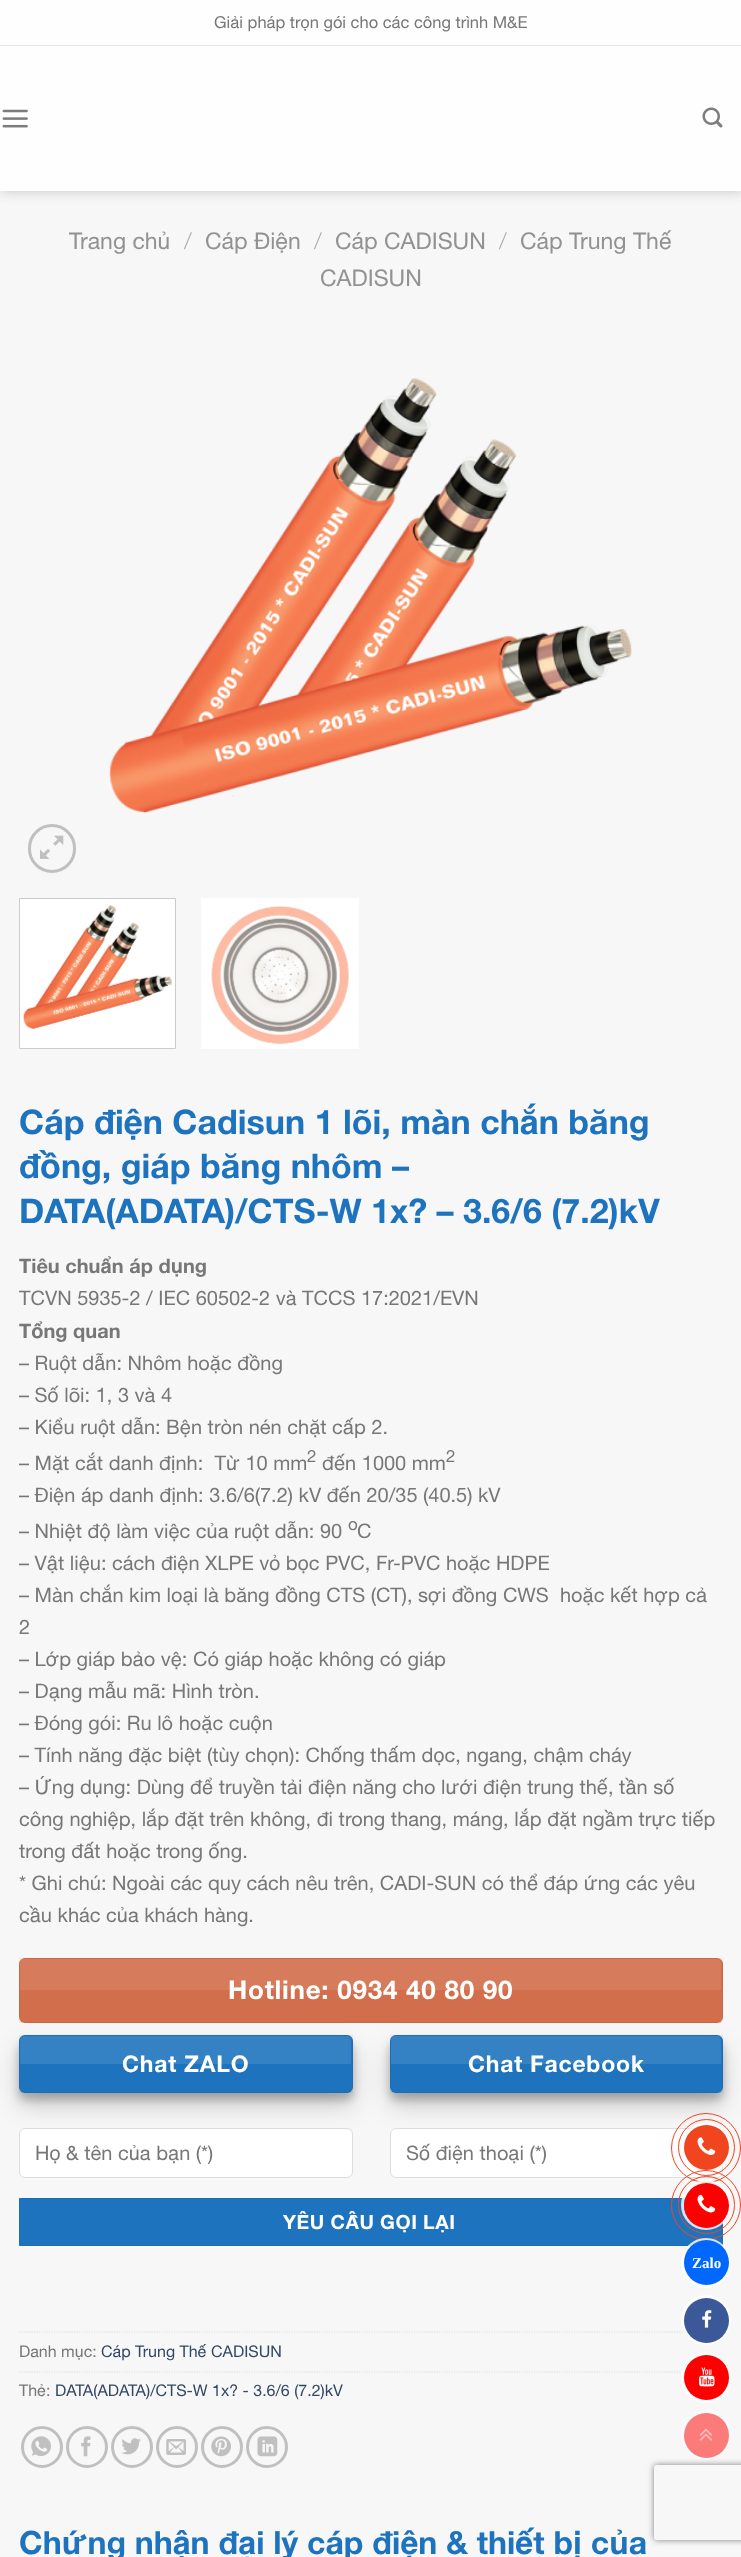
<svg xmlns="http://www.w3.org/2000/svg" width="741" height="2557">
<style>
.a{font:16.5px Helvetica Neue;fill:#777}
.b{font:23px Helvetica Neue;fill:#929292}
.c{font:300 23px Helvetica Neue;fill:#acacac}
.d{font:bold 34px Helvetica Neue;fill:#1e73be}
.e{font:bold 20px Helvetica Neue;fill:#777}
.f{font:20px Helvetica Neue;fill:#777}
.g{font:17px Helvetica Neue;fill:#777}
.h{font:bold 26px Helvetica Neue;letter-spacing:0.75px;fill:#fff}
.i{font:bold 23px Helvetica Neue;letter-spacing:0.75px;fill:#fff}
.j{font:bold 19.5px Helvetica Neue;letter-spacing:0.6px;fill:#fff}
.k{font:16px Helvetica Neue;fill:#777}
.l{font:16px Helvetica Neue;fill:#334862}
.m{font:bold 32px Helvetica Neue;fill:#1e73be}
.n{font:bold 15px Liberation Serif;fill:#fff}
</style>
<defs>
<clipPath id="clip1"><path d="M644 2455h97v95h-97zm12.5 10h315c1.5 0 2.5 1 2.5 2.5v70c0 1.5-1 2.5-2.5 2.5h-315c-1.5 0-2.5-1-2.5-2.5v-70c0-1.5 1-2.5 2.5-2.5z" clip-rule="evenodd"/></clipPath>
</defs>
<rect width="100%" height="100%" fill="#f7f7f7"/>
<path fill="#00000026" filter="blur(6px)" d="M1 1h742v192H1z"/>
<path fill="#fefefe" d="M0 0h741v191H0z"/>
<path fill="#e7e7e7" d="M0 45h741v1H0z"/>
<image href="1.png" x="2" y="109" width="26" height="19"/>
<image href="2.png" x="702" y="107" width="21" height="21"/>
<image href="3.png" x="109" y="378" width="523" height="436"/>
<rect fill="none" stroke="#c0c0c0" stroke-width="3" x="29.5" y="825.5" width="45" height="46" rx="22.5"/>
<image href="4.png" x="40" y="835" width="24" height="24"/>
<path fill="#fff" stroke="#ccc" d="M19.5 898.5h156v150H19.5z"/>
<image href="5.png" x="23" y="904" width="149" height="125"/>
<path fill="#fff" d="M201 898h158v151H201z"/>
<image href="6.png" x="211" y="906" width="138" height="138"/>
<rect fill="#d26e4b" x="19" y="1958" width="704" height="65" rx="6"/>
<path fill="none" stroke="#0000000d" d="M19.5 1958.5h703v64H19.5z"/>
<path fill="#ffffff1a" d="M25 1959h691c3 0 5 2 5 5v26h-701v-26c0-3 2-5 5-5z"/>
<rect fill="#00000038" filter="blur(4px)" x="19" y="2043" width="334" height="57" rx="6"/>
<rect fill="#00000030" filter="blur(12.5px)" x="19" y="2048" width="334" height="57" rx="6"/>
<rect fill="#1e73be" x="19" y="2035" width="334" height="58" rx="6"/>
<path fill="none" stroke="#0000000d" d="M19.5 2035.5h333v57H19.5z"/>
<path fill="#ffffff1a" d="M25 2036h321c3 0 5 2 5 5v23h-331v-23c0-3 2-5 5-5z"/>
<rect fill="#00000038" filter="blur(4px)" x="390" y="2043" width="333" height="57" rx="6"/>
<rect fill="#00000030" filter="blur(12.5px)" x="390" y="2048" width="333" height="57" rx="6"/>
<rect fill="#1e73be" x="390" y="2035" width="333" height="58" rx="6"/>
<path fill="none" stroke="#0000000d" d="M390.5 2035.5h332v57H390.5z"/>
<path fill="#ffffff1a" d="M396 2036h320c3 0 5 2 5 5v23h-330v-23c0-3 2-5 5-5z"/>
<rect fill="#fff" stroke="#ddd" x="19.5" y="2128.5" width="333" height="49" rx="5.5"/>
<rect fill="#fff" stroke="#ddd" x="390.5" y="2128.5" width="332" height="49" rx="5.5"/>
<path fill="#1e73be" stroke="#1d6db5" d="M19.5 2198.5h703v47H19.5z"/>
<path fill="none" stroke="#ddd" stroke-width="1.2" stroke-dasharray="1.25 1.25" d="M19 2332h703.5"/>
<path fill="none" stroke="#ddd" stroke-width="1.2" stroke-dasharray="1.25 1.25" d="M19 2372h703.5"/>
<circle fill="none" stroke="#c0c0c0" stroke-width="3" cx="42" cy="2447" r="19.5"/>
<image href="7.png" x="31" y="2436" width="20" height="20"/>
<circle fill="none" stroke="#c0c0c0" stroke-width="3" cx="87" cy="2447" r="19.5"/>
<image href="8.png" x="81" y="2436" width="10" height="21"/>
<circle fill="none" stroke="#c0c0c0" stroke-width="3" cx="132" cy="2447" r="19.5"/>
<image href="9.png" x="121" y="2438" width="20" height="17"/>
<circle fill="none" stroke="#c0c0c0" stroke-width="3" cx="177" cy="2447" r="19.5"/>
<image href="10.png" x="166" y="2439" width="20" height="16"/>
<circle fill="none" stroke="#c0c0c0" stroke-width="3" cx="222" cy="2447" r="19.5"/>
<image href="11.png" x="211" y="2436" width="20" height="21"/>
<circle fill="none" stroke="#c0c0c0" stroke-width="3" cx="267" cy="2447" r="19.5"/>
<image href="12.png" x="257" y="2436" width="21" height="21"/>
<circle fill="none" stroke="#ffffffcc" stroke-width="3" cx="706" cy="2148" r="23.5"/>
<circle fill="none" stroke="#f1451f" cx="706" cy="2148" r="34.5"/>
<circle fill="none" stroke="#f1451f" cx="706.5" cy="2147.5" r="28"/>
<circle fill="#f1451f" cx="706.5" cy="2147.5" r="22.5"/>
<image href="13.png" x="697" y="2137" width="19" height="18"/>
<circle fill="none" stroke="#ffffffcc" stroke-width="3" cx="706" cy="2205" r="23.5"/>
<circle fill="none" stroke="#f1451f" cx="706" cy="2205" r="34.5"/>
<rect fill="none" stroke="#f1451f" x="678.5" y="2176.5" width="56" height="57" rx="28"/>
<circle fill="#f00" cx="706.5" cy="2205.5" r="22.5"/>
<image href="14.png" x="697" y="2194" width="19" height="19"/>
<circle fill="none" stroke="#ffffffcc" stroke-width="3" cx="706" cy="2263" r="23.5"/>
<circle fill="#0068ff" cx="706.5" cy="2262.5" r="22.5"/>
<circle fill="none" stroke="#ffffffcc" stroke-width="3" cx="706" cy="2320" r="23.5"/>
<circle fill="#3b5998" cx="706.5" cy="2320.5" r="22.5"/>
<image href="15.png" x="702" y="2310" width="10" height="18"/>
<circle fill="none" stroke="#ffffffcc" stroke-width="3" cx="706" cy="2378" r="23.5"/>
<circle fill="#f00" cx="706.5" cy="2377.5" r="22.5"/>
<image href="16.png" x="699" y="2367" width="16" height="20"/>
<g clip-path="url(#clip1)">
<rect fill="#808080" filter="blur(3px)" x="654" y="2465" width="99" height="75" rx="2.5"/>
</g>
<circle fill="none" stroke="#ffffff66" stroke-width="3" cx="706" cy="2435" r="23.5"/>
<circle fill="#fb7b7b" cx="706.5" cy="2435.5" r="22.5"/>
<image href="17.png" x="699" y="2428" width="14" height="13"/>
<text class="a" x="214" y="28">Giải pháp trọn gói cho các công trình M&amp;E</text>
<text class="b" x="69" y="249">Trang chủ</text>
<text class="c" x="184" y="249">/</text>
<text class="b" x="205" y="249">Cáp Điện</text>
<text class="c" x="314" y="249">/</text>
<text class="b" x="335" y="249">Cáp CADISUN</text>
<text class="c" x="499" y="249">/</text>
<text class="b" x="520" y="249">Cáp Trung Thế</text>
<text class="b" x="320" y="286">CADISUN</text>
<text class="d" x="19" y="1134">Cáp điện Cadisun 1 lõi, màn chắn băng</text>
<text class="d" x="19" y="1178">đồng, giáp băng nhôm –</text>
<text class="d" x="19" y="1223">DATA(ADATA)/CTS-W 1x? – 3.6/6 (7.2)kV</text>
<text class="e" x="19" y="1273">Tiêu chuẩn áp dụng</text>
<text class="f" x="19" y="1305">TCVN 5935-2 / IEC 60502-2 và TCCS 17:2021/EVN</text>
<text class="e" x="19" y="1338">Tổng quan</text>
<text class="f" x="19" y="1370">– Ruột dẫn: Nhôm hoặc đồng</text>
<text class="f" x="19" y="1402">– Số lõi: 1, 3 và 4</text>
<text class="f" x="19" y="1434">– Kiểu ruột dẫn: Bện tròn nén chặt cấp 2.</text>
<text class="f" xml:space="preserve" x="19" y="1470">– Mặt cắt danh định:  Từ 10 mm</text>
<text class="g" x="307" y="1462">2</text>
<text class="f" x="322" y="1470">đến 1000 mm</text>
<text class="g" x="446" y="1462">2</text>
<text class="f" x="19" y="1502">– Điện áp danh định: 3.6/6(7.2) kV đến 20/35 (40.5) kV</text>
<text class="f" x="19" y="1538">– Nhiệt độ làm việc của ruột dẫn: 90</text>
<text class="g" x="348" y="1530">o</text>
<text class="f" x="357" y="1538">C</text>
<text class="f" x="19" y="1570">– Vật liệu: cách điện XLPE vỏ bọc PVC, Fr-PVC hoặc HDPE</text>
<text class="f" xml:space="preserve" x="19" y="1602">– Màn chắn kim loại là băng đồng CTS (CT), sợi đồng CWS  hoặc kết hợp cả</text>
<text class="f" x="19" y="1634">2</text>
<text class="f" x="19" y="1666">– Lớp giáp bảo vệ: Có giáp hoặc không có giáp</text>
<text class="f" x="19" y="1698">– Dạng mẫu mã: Hình tròn.</text>
<text class="f" x="19" y="1730">– Đóng gói: Ru lô hoặc cuộn</text>
<text class="f" x="19" y="1762">– Tính năng đặc biệt (tùy chọn): Chống thấm dọc, ngang, chậm cháy</text>
<text class="f" x="19" y="1794">– Ứng dụng: Dùng để truyền tải điện năng cho lưới điện trung thế, tần số</text>
<text class="f" x="19" y="1826">công nghiệp, lắp đặt trên không, đi trong thang, máng, lắp đặt ngầm trực tiếp</text>
<text class="f" x="19" y="1858">trong đất hoặc trong ống.</text>
<text class="f" x="19" y="1890">* Ghi chú: Ngoài các quy cách nêu trên, CADI-SUN có thể đáp ứng các yêu</text>
<text class="f" x="19" y="1922">cầu khác của khách hàng.</text>
<text class="h" x="228" y="1999">Hotline: 0934 40 80 90</text>
<text class="i" x="122" y="2072">Chat ZALO</text>
<text class="i" x="468" y="2072">Chat Facebook</text>
<text class="f" x="35" y="2160">Họ &amp; tên của bạn (*)</text>
<text class="f" x="406" y="2160">Số điện thoại (*)</text>
<text class="j" x="283" y="2229" word-spacing="-0.5">YÊU CẦU GỌI LẠI</text>
<text class="k" x="19" y="2357">Danh mục:</text>
<text class="l" x="101" y="2357">Cáp Trung Thế CADISUN</text>
<text class="k" x="19" y="2396">Thẻ:</text>
<text class="l" x="55" y="2396">DATA(ADATA)/CTS-W 1x? - 3.6/6 (7.2)kV</text>
<text class="m" x="19" y="2554">Chứng nhận đại lý cáp điện &amp; thiết bị của</text>
<text class="n" x="692" y="2268">Zalo</text>
</svg>
